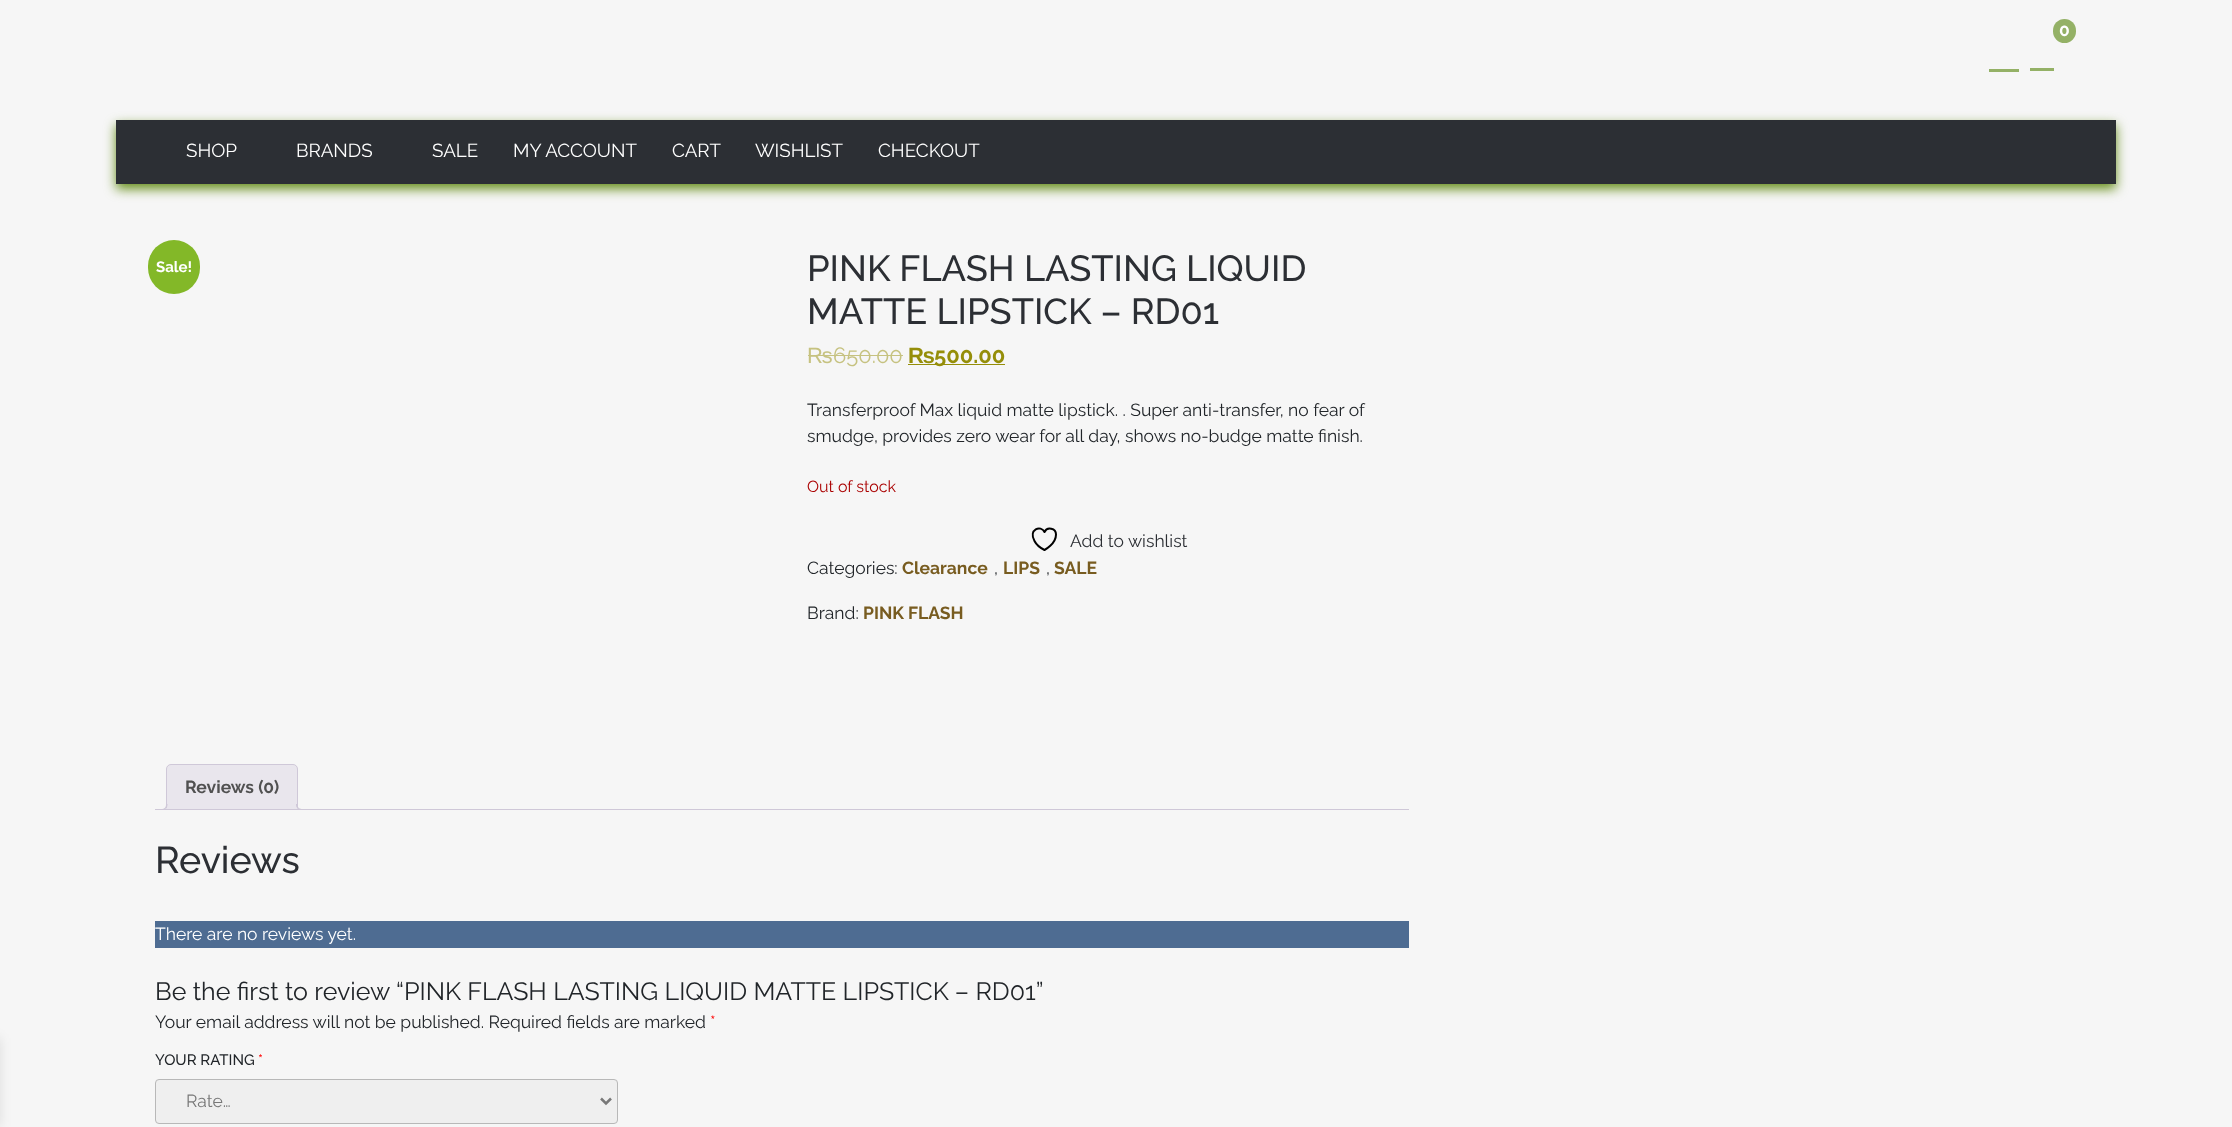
<svg xmlns="http://www.w3.org/2000/svg" width="2232" height="1127">
<style>
.a{font:bold 17.5px Raleway;fill:#fff}
.b{font:18.75px Raleway;fill:#fff}
.c{font:bold 15px Raleway;fill:#fff}
.d{font:500 36.25px Raleway;fill:#2c2f34}
.e{font:22px Liberation Sans;fill:#c6c280}
.f{font:22px Raleway;fill:#c6c280}
.g{font:bold 22px Liberation Sans;fill:#958e09}
.h{font:bold 22px Raleway;fill:#958e09}
.i{font:17.5px Raleway;fill:#212529}
.j{font:16px Raleway;fill:#a00}
.k{font:17.5px Raleway;fill:#2c2f34}
.l{font:bold 17.5px Raleway;fill:#785c20}
.m{font:bold 17.5px Raleway;fill:#515151}
.n{font:500 37.5px Raleway;fill:#2c2f34}
.o{font:17.5px Raleway;fill:#fff}
.p{font:25px Raleway;fill:#212529}
.q{font:17.5px Raleway;fill:#f00}
.r{font:500 15px Raleway;fill:#212529}
.s{font:500 15px Raleway;fill:#f00}
.t{font:17.5px Raleway;fill:#787878}
</style>
<defs>
<clipPath id="clip1"><path d="M155 764h1254v46H155z"/></clipPath>
</defs>
<rect width="100%" height="100%" fill="#f6f6f6"/>
<path fill="#0000001a" filter="blur(6px)" d="M-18 1038h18v88H-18z"/>
<path fill="#94b166" d="M2030 68h24v3H2030z"/>
<rect fill="#94b166" x="2053" y="19" width="23" height="24" rx="11.5"/>
<path fill="#94b166" d="M1989 69h30v3H1989z"/>
<path fill="#668e1a" filter="blur(6px)" d="M116 125h2000v64H116z"/>
<path fill="#2c2f34" d="M116 120h2000v64H116z"/>
<rect fill="#83b828" x="148" y="240" width="52" height="54" rx="26"/>
<path fill="#c6c280" d="M808 355h25v1H808z"/>
<path fill="#c6c280" d="M833 355h70v1H833z"/>
<path fill="#958e09" d="M908 364h97v1H908z"/>
<path fill="none" stroke="#000" stroke-width="2" stroke-linecap="round" stroke-linejoin="round" d="M1056 534.5c0-6.5-9-8-11.5-2.5c-3.5-7.5-16.5-2.5-10 9c2 4 6 7 10 9c0 0 11.5-6 11.5-15.5z"/>
<path fill="#e9e6ed" stroke="#cfc8d8" d="M171 764.5h122c2.5 0 4.5 2 4.5 4.5v40.5h-131v-40.5c0-2.5 2-4.5 4.5-4.5z"/>
<g clip-path="url(#clip1)">
<path fill="#e9e6ed" d="M164 810v3c5 0 6-2.5 6-7h-2.5c-.5 2-2 3-3.5 4z"/>
</g>
<path fill="#cfc8d8" fill-rule="evenodd" d="M161 804h6.5c0 4-2 6-6.5 6zm0 0h5c0 3.5-1 5-5 5z"/>
<g clip-path="url(#clip1)">
<path fill="#e9e6ed" d="M294 806c0 4.5 1 7 6 7v-3c-2-.5-3.5-2-3.5-4z"/>
</g>
<path fill="#cfc8d8" fill-rule="evenodd" d="M296 804h6.5v6c-3 0-6.5-1.5-6.5-5zm1.5 0h5v5c-2.5 0-5-1-5-4z"/>
<path fill="#cfc8d8" d="M155 809h1254v1H155z"/>
<path fill="#4e6c92" d="M155 921h1254v27H155z"/>
<rect fill="#efefef" stroke="#b8b8b8" x="155.5" y="1079.5" width="462" height="44" rx="3.5"/>
<path fill="none" stroke="#787878" stroke-width="2.5" d="M601 1098.5l5 5l5-5"/>
<text class="a" x="2059" y="36">0</text>
<text class="b" x="186" y="157">SHOP</text>
<text class="b" x="296" y="157">BRANDS</text>
<text class="b" x="432" y="157">SALE</text>
<text class="b" x="513" y="157">MY ACCOUNT</text>
<text class="b" x="672" y="157">CART</text>
<text class="b" x="755" y="157">WISHLIST</text>
<text class="b" x="878" y="157">CHECKOUT</text>
<text class="c" x="156" y="272">Sale!</text>
<text class="d" x="807" y="281">PINK FLASH LASTING LIQUID</text>
<text class="d" x="807" y="324">MATTE LIPSTICK – RD01</text>
<text class="e" x="807" y="363">₨</text>
<text class="f" x="833" y="363">650.00</text>
<text class="g" x="908" y="363">₨</text>
<text class="h" x="934" y="363">500.00</text>
<text class="i" x="807" y="416">Transferproof Max liquid matte lipstick. . Super anti-transfer, no fear of</text>
<text class="i" x="807" y="442">smudge, provides zero wear for all day, shows no-budge matte finish.</text>
<text class="j" x="807" y="492">Out of stock</text>
<text class="k" x="1070" y="547">Add to wishlist</text>
<text class="i" x="807" y="574">Categories:</text>
<text class="l" x="902" y="574">Clearance</text>
<text class="i" x="994" y="574">,</text>
<text class="l" x="1003" y="574">LIPS</text>
<text class="i" x="1046" y="574">,</text>
<text class="l" x="1054" y="574">SALE</text>
<text class="i" x="807" y="619">Brand:</text>
<text class="l" x="863" y="619">PINK FLASH</text>
<text class="m" x="185" y="793">Reviews (0)</text>
<text class="n" x="155" y="873">Reviews</text>
<text class="o" x="155" y="940">There are no reviews yet.</text>
<text class="p" x="155" y="1000">Be the first to review “PINK FLASH LASTING LIQUID MATTE LIPSTICK – RD01”</text>
<text class="i" x="155" y="1028">Your email address will not be published. Required fields are marked</text>
<text class="q" x="710" y="1028">*</text>
<text class="r" x="155" y="1065">YOUR RATING</text>
<text class="s" x="258" y="1065">*</text>
<text class="t" x="186" y="1107">Rate…</text>
</svg>
